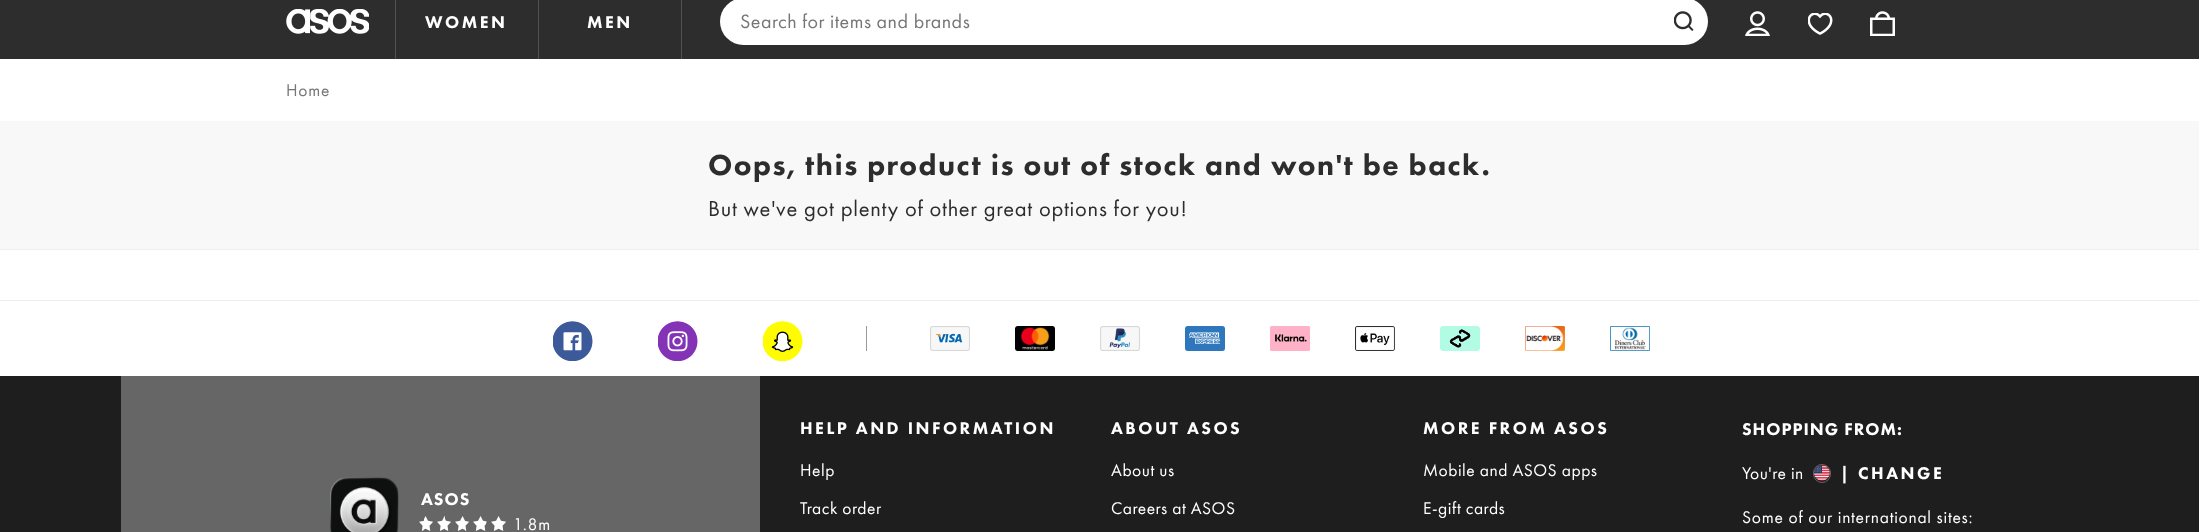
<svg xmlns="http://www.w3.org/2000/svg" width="2199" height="532">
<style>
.a{font:900 17.5px Futura PT;letter-spacing:2.5px;fill:#fff}
.b{font:20px Futura PT;letter-spacing:0.5px;fill:#767676}
.c{font:17.5px Futura PT;letter-spacing:0.75px;fill:#767676}
.d{font:900 30px Futura PT;letter-spacing:1.5px;fill:#2d2d2d}
.e{font:22.5px Futura PT;letter-spacing:0.75px;fill:#2d2d2d}
.f{font:900 17.5px Futura PT;letter-spacing:1px;fill:#fff}
.g{font:17.5px Futura PT;letter-spacing:0.75px;fill:#fff}
.h{font:17.5px Futura PT;letter-spacing:0.5px;fill:#fff}
</style>
<rect width="100%" height="100%" fill="#fff"/>
<path fill="#2d2d2d" d="M0 0h2199v59H0z"/>
<image href="1.png" x="286" y="9" width="83" height="25"/>
<path fill="#525050" d="M538 0h1v59H538z"/>
<path fill="#525050" d="M395 0h1v59H395z"/>
<path fill="#525050" d="M681 0h1v59H681z"/>
<rect fill="#fff" x="720" y="-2" width="988" height="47" rx="23.5"/>
<image href="2.png" x="1674" y="11" width="20" height="20"/>
<image href="3.png" x="1745" y="11" width="25" height="25"/>
<image href="4.png" x="1808" y="13" width="25" height="22"/>
<image href="5.png" x="1870" y="11" width="25" height="25"/>
<path fill="#eee" d="M0 249h2199v1H0z"/>
<path fill="#f8f8f8" d="M0 121h2199v128H0z"/>
<path fill="#1f1e1e" d="M0 376h2199v156H0z"/>
<path fill="#eee" d="M0 300h2199v1H0z"/>
<image href="6.png" x="553" y="321" width="40" height="40"/>
<circle fill="none" stroke="#fff" cx="572.5" cy="341.5" r="21"/>
<image href="7.png" x="658" y="321" width="40" height="40"/>
<circle fill="none" stroke="#fff" cx="677.5" cy="341.5" r="21"/>
<image href="8.png" x="763" y="321" width="40" height="40"/>
<circle fill="none" stroke="#fff" cx="782.5" cy="341.5" r="21"/>
<path fill="#999" d="M866 326h1v25H866z"/>
<image href="9.png" x="930" y="326" width="40" height="25"/>
<image href="10.png" x="1015" y="326" width="40" height="25"/>
<image href="11.png" x="1100" y="326" width="40" height="25"/>
<image href="12.png" x="1185" y="326" width="40" height="25"/>
<image href="13.png" x="1270" y="326" width="40" height="25"/>
<image href="14.png" x="1355" y="326" width="40" height="25"/>
<image href="15.png" x="1440" y="326" width="40" height="25"/>
<image href="16.png" x="1525" y="326" width="40" height="25"/>
<image href="17.png" x="1610" y="326" width="40" height="25"/>
<path fill="#666" d="M121 376h639v156H121z"/>
<image href="18.png" x="330" y="477" width="69" height="55"/>
<image href="19.png" x="419" y="516" width="87" height="15"/>
<rect fill="none" stroke="#666" x="1813.5" y="464.5" width="17" height="18" rx="8.5"/>
<image href="20.png" x="1814" y="465" width="16" height="16"/>
<text class="a" x="425" y="28">WOMEN</text>
<text class="a" x="587" y="28">MEN</text>
<text class="b" x="740" y="28">Search for items and brands</text>
<text class="c" x="286" y="96">Home</text>
<text class="d" x="708" y="175">Oops, this product is out of stock and won't be back.</text>
<text class="e" x="708" y="216">But we've got plenty of other great options for you!</text>
<text class="f" x="421" y="505">ASOS</text>
<text class="g" x="513" y="530">1.8m</text>
<text class="a" x="800" y="434">HELP AND INFORMATION</text>
<text class="h" x="800" y="476">Help</text>
<text class="h" x="800" y="514">Track order</text>
<text class="a" x="1111" y="434">ABOUT ASOS</text>
<text class="h" x="1111" y="476">About us</text>
<text class="h" x="1111" y="514">Careers at ASOS</text>
<text class="a" x="1423" y="434">MORE FROM ASOS</text>
<text class="h" x="1423" y="476">Mobile and ASOS apps</text>
<text class="h" x="1423" y="514">E-gift cards</text>
<text class="f" x="1742" y="435">SHOPPING FROM:</text>
<text class="h" x="1742" y="479">You're in</text>
<text class="a" x="1840" y="479">|</text>
<text class="a" x="1858" y="479">CHANGE</text>
<text class="g" x="1742" y="523">Some of our international sites:</text>
</svg>
